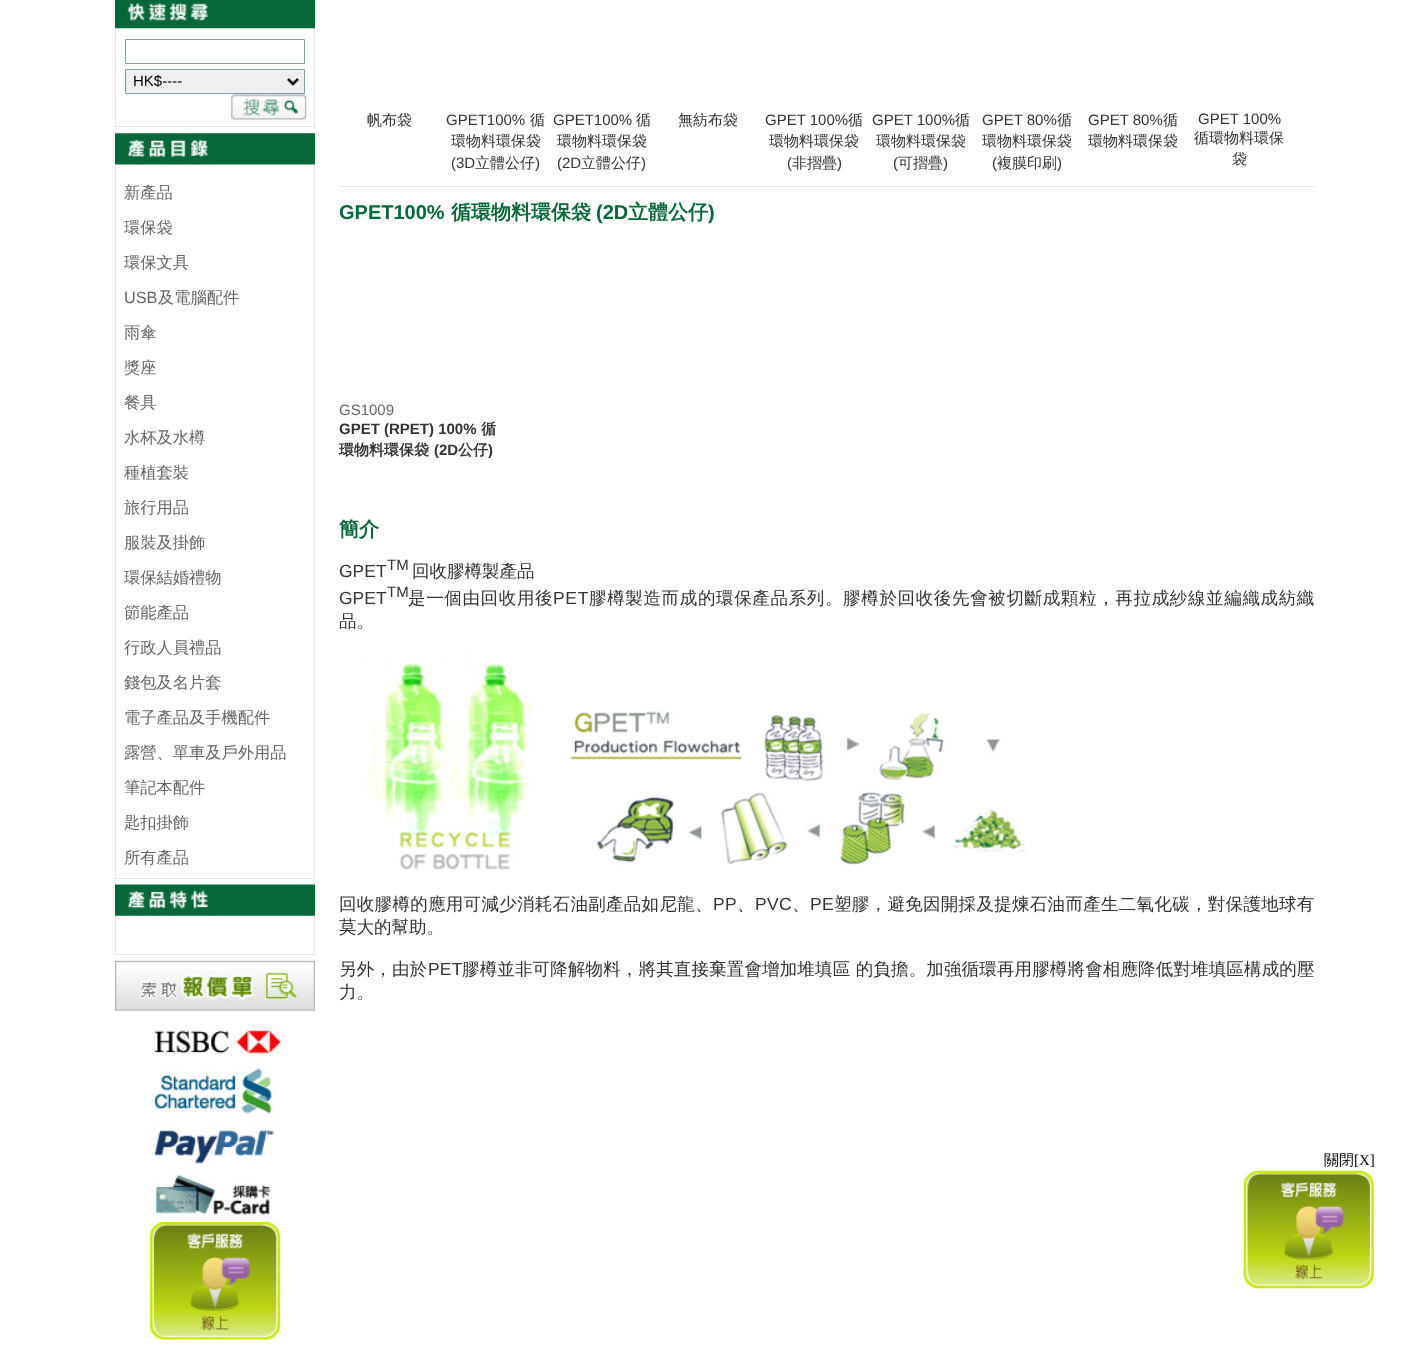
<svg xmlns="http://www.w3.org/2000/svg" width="1428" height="1358">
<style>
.a{font:15px Liberation Sans;fill:#000}
.b{font:500 16.25px WenQuanYi Zen Hei;fill:#666}
.c{font:16.25px Liberation Sans;fill:#666}
.d{font:500 15px WenQuanYi Zen Hei;fill:#333}
.e{font:15px Liberation Sans;fill:#333}
.f{font:bold 20px Liberation Sans;fill:#056839}
.g{font:bold 20px WenQuanYi Zen Hei;fill:#056839}
.h{font:15px Liberation Sans;fill:#666}
.i{font:bold 15px Liberation Sans;fill:#333}
.j{font:bold 15px WenQuanYi Zen Hei;fill:#333}
.k{font:17.5px Liberation Sans;fill:#333}
.l{font:500 17.5px WenQuanYi Zen Hei;fill:#333}
.m{font:500 17.5px WenQuanYi Zen Hei;letter-spacing:0.65px;fill:#333}
.n{font:17.5px Liberation Sans;letter-spacing:0.65px;fill:#333}
.o{font:500 17.5px WenQuanYi Zen Hei;letter-spacing:0.3px;fill:#333}
.p{font:17.5px Liberation Sans;letter-spacing:0.3px;fill:#333}
.q{font:500 17.5px WenQuanYi Zen Hei;letter-spacing:0.15px;fill:#333}
.r{font:17.5px Liberation Sans;letter-spacing:0.15px;fill:#333}
.s{font:500 15px WenQuanYi Zen Hei;fill:#000}
.t{font:15px Liberation Serif;fill:#000}
</style>
<rect width="100%" height="100%" fill="#fff"/>
<image href="1.png" x="115" y="0" width="200" height="29"/>
<path fill="#e6e6e6" d="M314 29h1v99H314z"/>
<path fill="#e6e6e6" d="M115 126h200v1H115z"/>
<path fill="#e6e6e6" d="M115 29h1v99H115z"/>
<path fill="none" stroke="#7f9db9" d="M125.5 39.5h179v24H125.5z"/>
<path fill="#efefef" stroke="#7f9db9" d="M125.5 69.5h179v24H125.5z"/>
<path fill="none" stroke="#000" stroke-width="2.5" d="M288 79l5 5l5-5"/>
<image href="2.png" x="231" y="94" width="76" height="26"/>
<image href="3.png" x="115" y="133" width="200" height="32"/>
<path fill="#e6e6e6" d="M314 165h1v714H314z"/>
<path fill="#e6e6e6" d="M115 878h200v1H115z"/>
<path fill="#e6e6e6" d="M115 165h1v714H115z"/>
<image href="4.png" x="115" y="884" width="200" height="32"/>
<path fill="#e6e6e6" d="M314 916h1v39H314z"/>
<path fill="#e6e6e6" d="M115 954h200v1H115z"/>
<path fill="#e6e6e6" d="M115 916h1v39H115z"/>
<image href="5.png" x="115" y="960" width="200" height="51"/>
<image href="6.png" x="154" y="1023" width="128" height="39"/>
<image href="7.png" x="150" y="1068" width="128" height="50"/>
<image href="8.png" x="150" y="1124" width="130" height="42"/>
<image href="9.png" x="151" y="1173" width="120" height="43"/>
<image href="10.png" x="149" y="1222" width="132" height="118"/>
<path fill="#e6e6e6" d="M340 186h975v1H340z"/>
<image href="11.png" x="364" y="654" width="170" height="216"/>
<image href="12.png" x="569" y="711" width="457" height="155"/>
<image href="13.png" x="1242" y="1170" width="132" height="119"/>
<text class="a" x="133" y="86">HK$----</text>
<text class="b" x="124" y="198">新產品</text>
<text class="b" x="124" y="233">環保袋</text>
<text class="b" x="124" y="268">環保文具</text>
<text class="c" x="124" y="303">USB</text>
<text class="b" x="158" y="303">及電腦配件</text>
<text class="b" x="124" y="338">雨傘</text>
<text class="b" x="124" y="373">獎座</text>
<text class="b" x="124" y="408">餐具</text>
<text class="b" x="124" y="443">水杯及水樽</text>
<text class="b" x="124" y="478">種植套裝</text>
<text class="b" x="124" y="513">旅行用品</text>
<text class="b" x="124" y="548">服裝及掛飾</text>
<text class="b" x="124" y="583">環保結婚禮物</text>
<text class="b" x="124" y="618">節能產品</text>
<text class="b" x="124" y="653">行政人員禮品</text>
<text class="b" x="124" y="688">錢包及名片套</text>
<text class="b" x="124" y="723">電子產品及手機配件</text>
<text class="b" x="124" y="758">露營、單車及戶外用品</text>
<text class="b" x="124" y="793">筆記本配件</text>
<text class="b" x="124" y="828">匙扣掛飾</text>
<text class="b" x="124" y="863">所有產品</text>
<text class="d" x="367" y="125">帆布袋</text>
<text class="e" x="446" y="125">GPET100%</text>
<text class="d" x="530" y="125">循</text>
<text class="d" x="451" y="146">環物料環保袋</text>
<text class="e" x="451" y="168">(3D</text>
<text class="d" x="475" y="168">立體公仔</text>
<text class="e" x="535" y="168">)</text>
<text class="e" x="553" y="125">GPET100%</text>
<text class="d" x="636" y="125">循</text>
<text class="d" x="557" y="146">環物料環保袋</text>
<text class="e" x="557" y="168">(2D</text>
<text class="d" x="581" y="168">立體公仔</text>
<text class="e" x="641" y="168">)</text>
<text class="d" x="678" y="125">無紡布袋</text>
<text class="e" x="765" y="125">GPET 100%</text>
<text class="d" x="848" y="125">循</text>
<text class="d" x="769" y="146">環物料環保袋</text>
<text class="e" x="787" y="168">(</text>
<text class="d" x="792" y="168">非摺疊</text>
<text class="e" x="837" y="168">)</text>
<text class="e" x="872" y="125">GPET 100%</text>
<text class="d" x="955" y="125">循</text>
<text class="d" x="876" y="146">環物料環保袋</text>
<text class="e" x="893" y="168">(</text>
<text class="d" x="898" y="168">可摺疊</text>
<text class="e" x="943" y="168">)</text>
<text class="e" x="982" y="125">GPET 80%</text>
<text class="d" x="1057" y="125">循</text>
<text class="d" x="982" y="146">環物料環保袋</text>
<text class="e" x="992" y="168">(</text>
<text class="d" x="997" y="168">複膜印刷</text>
<text class="e" x="1057" y="168">)</text>
<text class="e" x="1088" y="125">GPET 80%</text>
<text class="d" x="1163" y="125">循</text>
<text class="d" x="1088" y="146">環物料環保袋</text>
<text class="e" x="1198" y="124">GPET 100%</text>
<text class="d" x="1194" y="143">循環物料環保</text>
<text class="d" x="1232" y="164">袋</text>
<text class="f" x="339" y="219">GPET100%</text>
<text class="g" x="451" y="219">循環物料環保袋</text>
<text class="f" x="596" y="219">(2D</text>
<text class="g" x="628" y="219">立體公仔</text>
<text class="f" x="708" y="219">)</text>
<text class="h" x="339" y="415">GS1009</text>
<text class="i" x="339" y="434">GPET (RPET) 100%</text>
<text class="j" x="481" y="434">循</text>
<text class="j" x="339" y="455">環物料環保袋</text>
<text class="i" x="434" y="455">(2D</text>
<text class="j" x="458" y="455">公仔</text>
<text class="i" x="488" y="455">)</text>
<text class="g" x="339" y="536">簡介</text>
<text class="k" x="339" y="577">GPET</text>
<text class="e" x="387" y="570">TM</text>
<text class="l" x="412" y="577">回收膠樽製產品</text>
<text class="k" x="339" y="604">GPET</text>
<text class="e" x="387" y="597">TM</text>
<text class="m" x="408" y="604">是一個由回收用後</text>
<text class="n" x="553" y="604">PET</text>
<text class="m" x="589" y="604">膠樽製造而成的環保產品系列。膠樽於回收後先會被切斷成顆粒，再拉成紗線並編織成紡織</text>
<text class="l" x="339" y="627">品。</text>
<text class="o" x="339" y="910">回收膠樽的應用可減少消耗石油副產品如尼龍、</text>
<text class="p" x="713" y="910">PP</text>
<text class="p" x="755" y="910">PVC</text>
<text class="p" x="810" y="910">PE</text>
<text class="o" x="834" y="910">塑膠，避免因開採及提煉石油而產生二氧化碳，對保護地球有</text>
<text class="o" x="737" y="910">、</text>
<text class="o" x="792" y="910">、</text>
<text class="l" x="339" y="933">莫大的幫助。</text>
<text class="q" x="339" y="975">另外，由於</text>
<text class="r" x="428" y="975">PET</text>
<text class="q" x="462" y="975">膠樽並非可降解物料，將其直接棄置會增加堆填區 的負擔。加強循環再用膠樽將會相應降低對堆填區構成的壓</text>
<text class="l" x="339" y="998">力。</text>
<text class="s" x="1324" y="1165">關閉</text>
<text class="t" x="1354" y="1165">[X]</text>
</svg>
